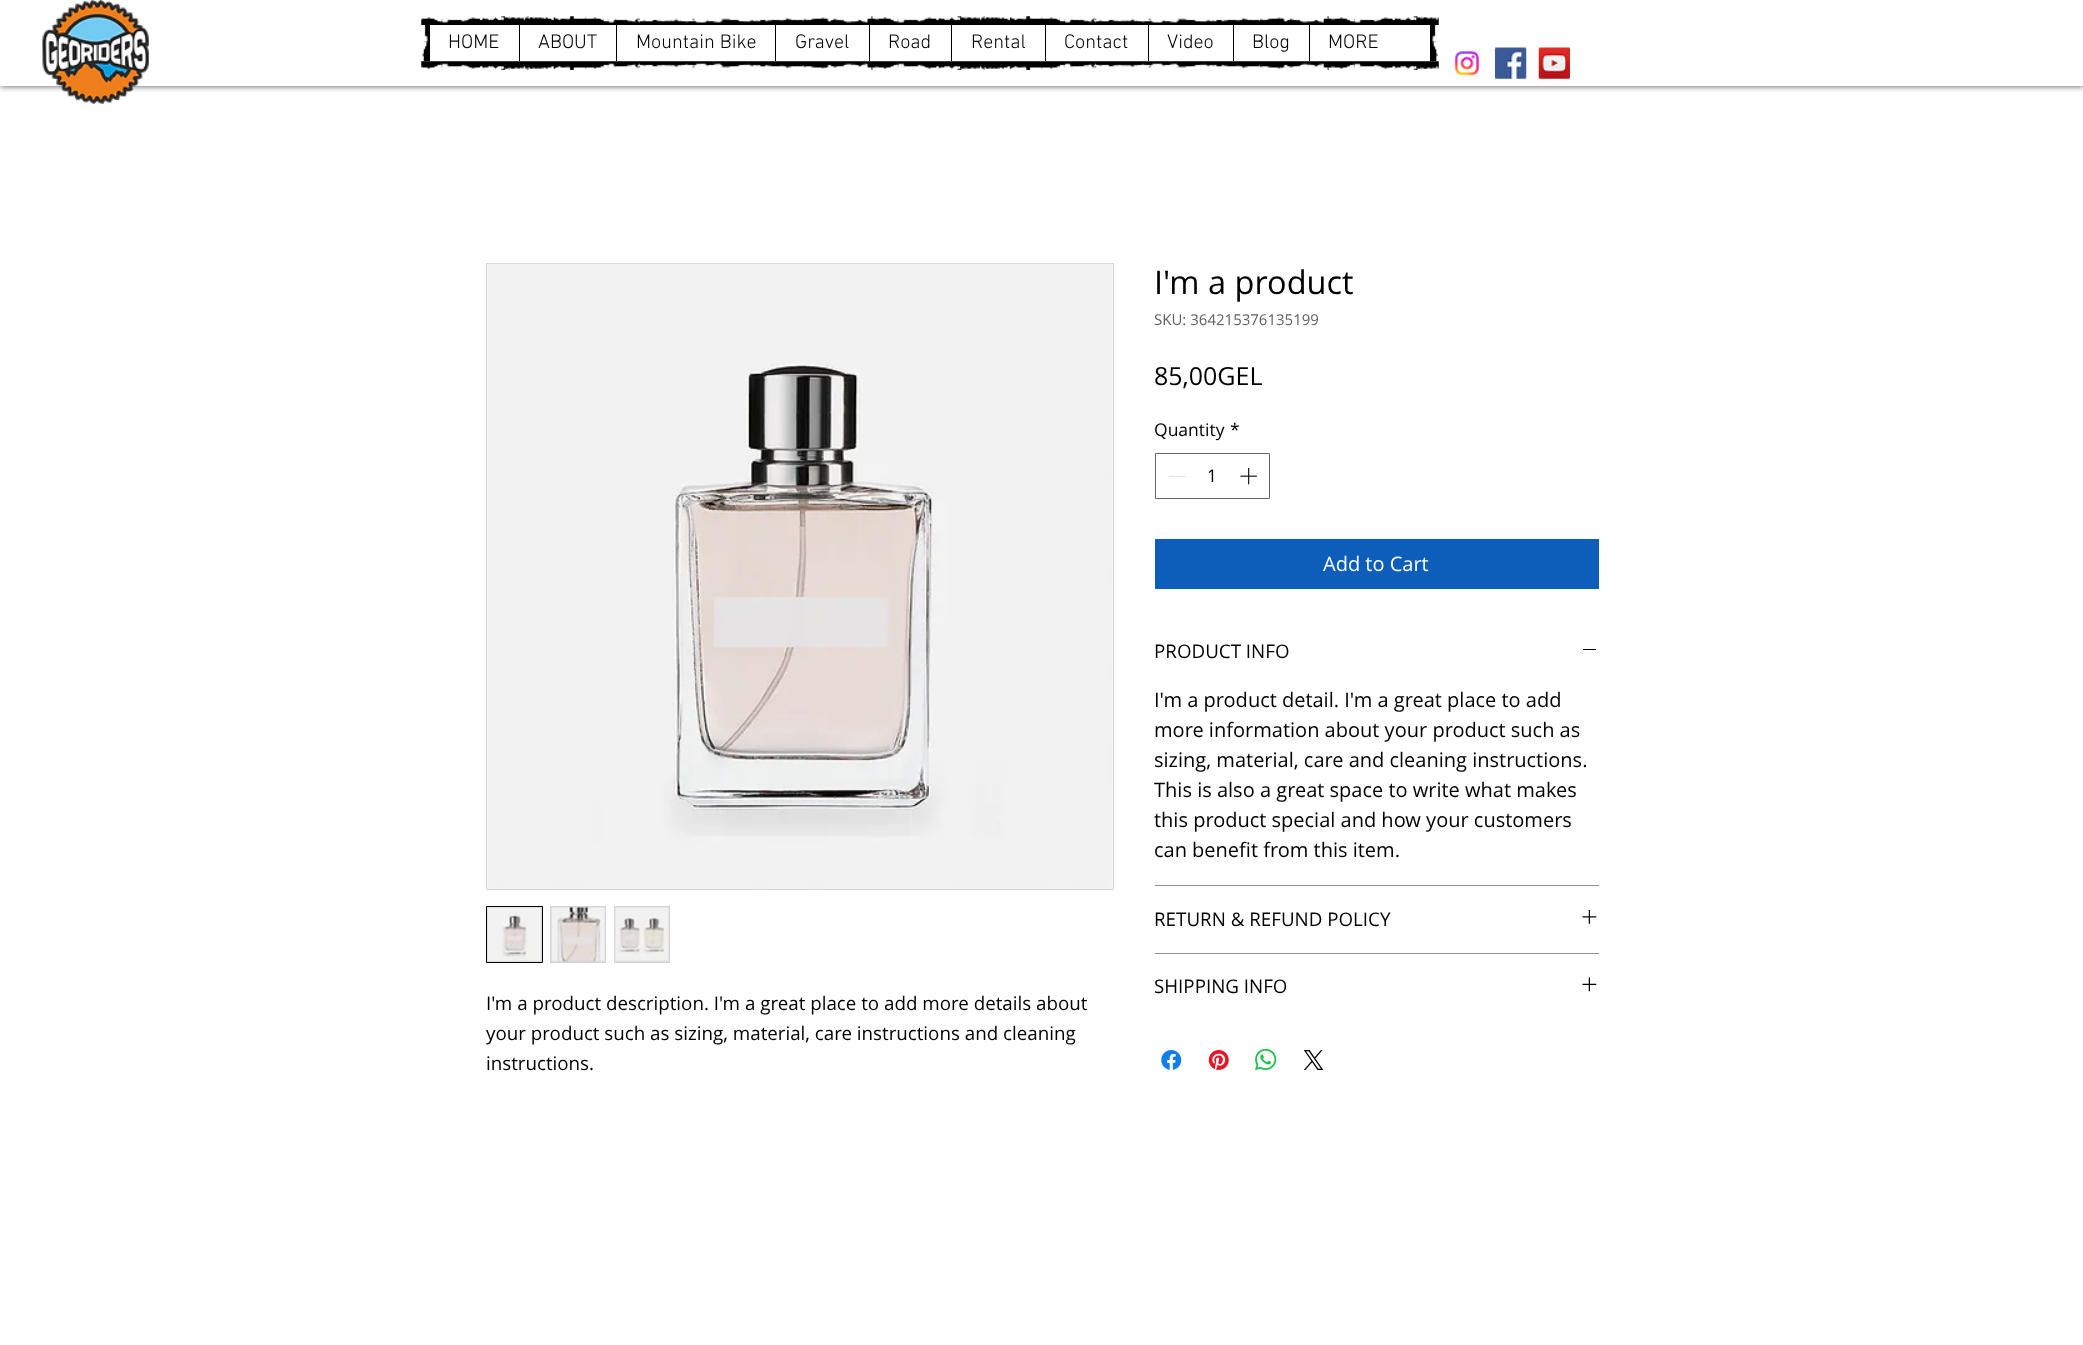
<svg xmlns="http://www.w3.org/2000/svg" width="2083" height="1345">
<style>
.a{font:300 20px 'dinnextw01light';fill:#000}
.b{font:32.5px Open Sans;fill:#000}
.c{font:15px Open Sans;fill:#606060}
.d{font:25px Open Sans;fill:#000}
.e{font:17.5px Open Sans;fill:#000}
.f{font:20px Open Sans;fill:#fff}
.g{font:18.75px Open Sans;fill:#000}
.h{font:20px Open Sans;fill:#000}
</style>
<defs>
<clipPath id="clip1"><path d="M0 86h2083v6H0z"/></clipPath>
<clipPath id="clip2"><path d="M486 988h625v90H486z"/></clipPath>
</defs>
<rect width="100%" height="100%" fill="#fff"/>
<g clip-path="url(#clip1)">
<path fill="#000000b3" filter="blur(3px)" d="M0 0h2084v86H0z"/>
</g>
<image href="1.png" x="42" y="0" width="107" height="104"/>
<image href="2.png" x="421" y="16" width="1018" height="9"/>
<image href="3.png" x="422" y="25" width="8" height="37"/>
<path fill="#000" d="M519 25h1v36H519z"/>
<path fill="#000" d="M616 25h1v36H616z"/>
<path fill="#000" d="M775 25h1v36H775z"/>
<path fill="#000" d="M869 25h1v36H869z"/>
<path fill="#000" d="M951 25h1v36H951z"/>
<path fill="#000" d="M1045 25h1v36H1045z"/>
<path fill="#000" d="M1148 25h1v36H1148z"/>
<path fill="#000" d="M1233 25h1v36H1233z"/>
<path fill="#000" d="M1309 25h1v36H1309z"/>
<image href="4.png" x="1430" y="25" width="8" height="37"/>
<image href="5.png" x="421" y="61" width="1018" height="9"/>
<image href="6.png" x="1454" y="51" width="25" height="25"/>
<image href="7.png" x="1495" y="47" width="32" height="32"/>
<image href="8.png" x="1538" y="47" width="32" height="32"/>
<path fill="none" stroke="#666" d="M1155.5 453.5h114v45H1155.5z"/>
<path fill="#e3e3e3" d="M1169 476h17v1H1169z"/>
<image href="9.png" x="1240" y="467" width="17" height="18"/>
<path fill="#0d5eba" d="M1155 539h444v50H1155z"/>
<path fill="#909090" d="M1155 885h444v1H1155z"/>
<path fill="#000" d="M1583 649h13v1H1583z"/>
<path fill="#909090" d="M1155 953h444v1H1155z"/>
<image href="10.png" x="1582" y="910" width="15" height="14"/>
<image href="11.png" x="1582" y="977" width="15" height="15"/>
<image href="12.png" x="1161" y="1050" width="21" height="20"/>
<image href="13.png" x="1208" y="1050" width="21" height="20"/>
<image href="14.png" x="1255" y="1048" width="22" height="23"/>
<image href="15.png" x="1303" y="1050" width="21" height="20"/>
<path fill="none" stroke="#d4d4d4" d="M486.5 263.5h627v626H486.5z"/>
<image href="16.png" x="487" y="263" width="626" height="626"/>
<path fill="#d4d4d4" stroke="#000" d="M486.5 906.5h56v56H486.5z"/>
<image href="17.png" x="487" y="907" width="55" height="55"/>
<path fill="#d4d4d4" d="M550 906h56v57H550z"/>
<image href="18.png" x="551" y="907" width="55" height="55"/>
<path fill="#d4d4d4" d="M614 906h56v57H614z"/>
<image href="19.png" x="614" y="907" width="55" height="55"/>
<text class="a" x="448" y="48">HOME</text>
<text class="a" x="538" y="48">ABOUT</text>
<text class="a" x="636" y="48">Mountain Bike</text>
<text class="a" x="795" y="48">Gravel</text>
<text class="a" x="888" y="48">Road</text>
<text class="a" x="971" y="48">Rental</text>
<text class="a" x="1064" y="48">Contact</text>
<text class="a" x="1167" y="48">Video</text>
<text class="a" x="1252" y="48">Blog</text>
<text class="a" x="1328" y="48">MORE</text>
<text class="b" x="1154" y="294">I'm a product</text>
<text class="c" x="1154" y="325">SKU: 364215376135199</text>
<text class="d" x="1154" y="385">85,00GEL</text>
<text class="e" x="1154" y="436">Quantity</text>
<text class="e" x="1230" y="436">*</text>
<text class="e" x="1207" y="482">1</text>
<text class="f" x="1323" y="571">Add to Cart</text>
<text class="g" x="1154" y="658">PRODUCT INFO</text>
<text class="h" x="1154" y="707">I'm a product detail. I'm a great place to add</text>
<text class="h" x="1154" y="737">more information about your product such as</text>
<text class="h" x="1154" y="767">sizing, material, care and cleaning instructions.</text>
<text class="h" x="1154" y="797">This is also a great space to write what makes</text>
<text class="h" x="1154" y="827">this product special and how your customers</text>
<text class="h" x="1154" y="857">can benefit from this item.</text>
<text class="g" x="1154" y="926">RETURN &amp; REFUND POLICY</text>
<text class="g" x="1154" y="993">SHIPPING INFO</text>
<text class="g" x="486" y="1010">I'm a product description. I'm a great place to add more details about</text>
<g clip-path="url(#clip2)">
<text class="g" x="486" y="1040">your product such as sizing, material, care instructions and cleaning</text>
</g>
<text class="g" x="486" y="1070">instructions.</text>
</svg>
